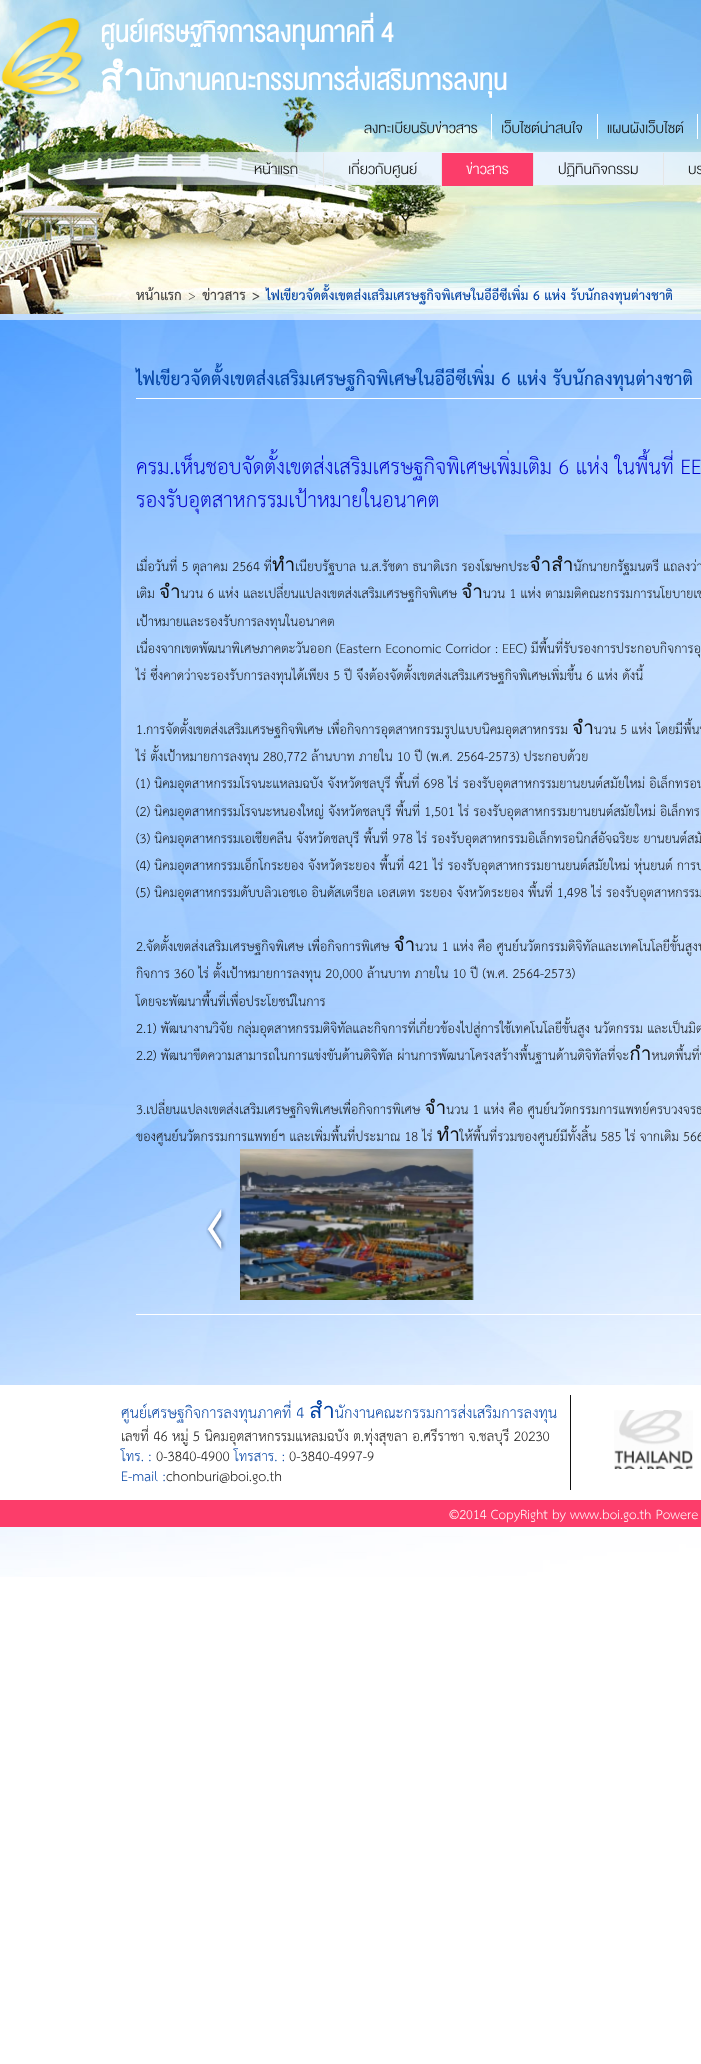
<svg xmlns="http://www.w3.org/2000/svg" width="701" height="2064">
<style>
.a{font:bold 38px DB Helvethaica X;fill:#fff}
.b{font:300 20px DB Helvethaica X;fill:#111}
.c{font:300 20px DB Helvethaica X;fill:#fff}
.d{font:bold 20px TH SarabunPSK;fill:#464646}
.e{font:19px TH SarabunPSK;fill:#464646}
.f{font:bold 19px TH SarabunPSK;fill:#464646}
.g{font:bold 19px TH SarabunPSK;fill:#0343a4}
.h{font:bold 26px TH SarabunPSK;fill:#0343a4}
.i{font:30px TH SarabunPSK;fill:#0000cd}
.j{font:19px TH SarabunPSK;fill:#111}
.k{font:22px TH SarabunPSK;fill:#0343a4}
.l{font:20px TH SarabunPSK;fill:#111}
.m{font:20px TH SarabunPSK;fill:#0343a4}
.n{font:19px TH SarabunPSK;fill:#fff}
</style>
<rect width="100%" height="100%" fill="#fff"/>
<image href="1.png" x="0" y="314" width="701" height="1263"/>
<image href="4.png" x="0" y="0" width="701" height="314"/>
<image href="2.png" x="1" y="18" width="84" height="81"/>
<path fill="#fff" d="M491 114h1v25H491z"/>
<path fill="#fff" d="M597 114h1v25H597z"/>
<path fill="#fff" d="M697 114h1v25H697z"/>
<image href="3.png" x="18" y="148" width="683" height="41"/>
<path fill="#e6e6e6" d="M323 153h1v33H323z"/>
<path fill="#fc3d6a" d="M442 153h91v33H442z"/>
<path fill="#e6e6e6" d="M441 153h1v33H441z"/>
<path fill="#e6e6e6" d="M533 153h1v33H533z"/>
<path fill="#e6e6e6" d="M663 153h1v33H663z"/>
<image href="5.png" x="45" y="283" width="656" height="26"/>
<path fill="#ffffff99" d="M0 314h701v6H0z"/>
<image href="6.png" x="121" y="314" width="580" height="733"/>
<path fill="#fff" d="M136 398h565v1H136z"/>
<image href="7.png" x="206" y="1208" width="20" height="44"/>
<image href="8.png" x="240" y="1149" width="234" height="151"/>
<path fill="#fff" d="M136 1314h565v1H136z"/>
<path fill="#fff" d="M0 1385h701v115H0z"/>
<path fill="#111" d="M570 1395h1v95H570z"/>
<image href="9.png" x="614" y="1410" width="79" height="59"/>
<path fill="#fc3d6a" d="M0 1500h701v27H0z"/>
<text class="a" x="100" y="42">ศูนย์เศรษฐกิจการลงทุนภาคที่ 4</text>
<text class="a" x="100" y="90">สำนักงานคณะกรรมการส่งเสริมการลงทุน</text>
<text class="b" x="364" y="133">ลงทะเบียนรับข่าวสาร</text>
<text class="b" x="501" y="133">เว็บไซต์น่าสนใจ</text>
<text class="b" x="607" y="133">แผนผังเว็บไซต์</text>
<text class="b" x="254" y="174">หน้าแรก</text>
<text class="b" x="348" y="174">เกี่ยวกับศูนย์</text>
<text class="c" x="466" y="174">ข่าวสาร</text>
<text class="b" x="558" y="174">ปฏิทินกิจกรรม</text>
<text class="b" x="688" y="174">บร</text>
<text class="d" x="136" y="300">หน้าแรก</text>
<text class="e" x="188" y="300">&gt;</text>
<text class="d" x="202" y="300">ข่าวสาร</text>
<text class="f" x="252" y="300">&gt;</text>
<text class="g" x="266" y="300">ไฟเขียวจัดตั้งเขตส่งเสริมเศรษฐกิจพิเศษในอีอีซีเพิ่ม 6 แห่ง รับนักลงทุนต่างชาติ</text>
<text class="h" x="136" y="385">ไฟเขียวจัดตั้งเขตส่งเสริมเศรษฐกิจพิเศษในอีอีซีเพิ่ม 6 แห่ง รับนักลงทุนต่างชาติ</text>
<text class="i" x="136" y="474">ครม.เห็นชอบจัดตั้งเขตส่งเสริมเศรษฐกิจพิเศษเพิ่มเติม 6 แห่ง ในพื้นที่ EE</text>
<text class="i" x="136" y="507">รองรับอุตสาหกรรมเป้าหมายในอนาคต</text>
<text class="j" x="136" y="571">เมื่อวันที่ 5 ตุลาคม 2564 ที่ทำเนียบรัฐบาล น.ส.รัชดา ธนาดิเรก รองโฆษกประจำสำนักนายกรัฐมนตรี แถลงว่า ที่ปร</text>
<text class="j" x="136" y="598">เติม จำนวน 6 แห่ง และเปลี่ยนแปลงเขตส่งเสริมเศรษฐกิจพิเศษ จำนวน 1 แห่ง ตามมติคณะกรรมการนโยบายเขตพั</text>
<text class="j" x="136" y="626">เป้าหมายและรองรับการลงทุนในอนาคต</text>
<text class="j" x="136" y="653">เนื่องจากเขตพัฒนาพิเศษภาคตะวันออก (Eastern Economic Corridor : EEC) มีพื้นที่รับรองการประกอบกิจการอุ</text>
<text class="j" x="136" y="680">ไร่ ซึ่งคาดว่าจะรองรับการลงทุนได้เพียง 5 ปี จึงต้องจัดตั้งเขตส่งเสริมเศรษฐกิจพิเศษเพิ่มขึ้น 6 แห่ง ดังนี้</text>
<text class="j" x="136" y="734">1.การจัดตั้งเขตส่งเสริมเศรษฐกิจพิเศษ เพื่อกิจการอุตสาหกรรมรูปแบบนิคมอุตสาหกรรม จำนวน 5 แห่ง โดยมีพื้นที่</text>
<text class="j" x="136" y="761">ไร่ ตั้งเป้าหมายการลงทุน 280,772 ล้านบาท ภายใน 10 ปี (พ.ศ. 2564-2573) ประกอบด้วย</text>
<text class="j" x="136" y="788">(1) นิคมอุตสาหกรรมโรจนะแหลมฉบัง จังหวัดชลบุรี พื้นที่ 698 ไร่ รองรับอุตสาหกรรมยานยนต์สมัยใหม่ อิเล็กทรอน</text>
<text class="j" x="136" y="816">(2) นิคมอุตสาหกรรมโรจนะหนองใหญ่ จังหวัดชลบุรี พื้นที่ 1,501 ไร่ รองรับอุตสาหกรรมยานยนต์สมัยใหม่ อิเล็กทร</text>
<text class="j" x="136" y="843">(3) นิคมอุตสาหกรรมเอเชียคลีน จังหวัดชลบุรี พื้นที่ 978 ไร่ รองรับอุตสาหกรรมอิเล็กทรอนิกส์อัจฉริยะ ยานยนต์สมั</text>
<text class="j" x="136" y="870">(4) นิคมอุตสาหกรรมเอ็กโกระยอง จังหวัดระยอง พื้นที่ 421 ไร่ รองรับอุตสาหกรรมยานยนต์สมัยใหม่ หุ่นยนต์ การบ</text>
<text class="j" x="136" y="897">(5) นิคมอุตสาหกรรมดับบลิวเอชเอ อินดัสเตรียล เอสเตท ระยอง จังหวัดระยอง พื้นที่ 1,498 ไร่ รองรับอุตสาหกรรม</text>
<text class="j" x="136" y="951">2.จัดตั้งเขตส่งเสริมเศรษฐกิจพิเศษ เพื่อกิจการพิเศษ จำนวน 1 แห่ง คือ ศูนย์นวัตกรรมดิจิทัลและเทคโนโลยีขั้นสูงบ้</text>
<text class="j" x="136" y="978">กิจการ 360 ไร่ ตั้งเป้าหมายการลงทุน 20,000 ล้านบาท ภายใน 10 ปี (พ.ศ. 2564-2573)</text>
<text class="j" x="136" y="1006">โดยจะพัฒนาพื้นที่เพื่อประโยชน์ในการ</text>
<text class="j" x="136" y="1033">2.1) พัฒนางานวิจัย กลุ่มอุตสาหกรรมดิจิทัลและกิจการที่เกี่ยวข้องไปสู่การใช้เทคโนโลยีขั้นสูง นวัตกรรม และเป็นมิต</text>
<text class="j" x="136" y="1060">2.2) พัฒนาขีดความสามารถในการแข่งขันด้านดิจิทัล ผ่านการพัฒนาโครงสร้างพื้นฐานด้านดิจิทัลที่จะกำหนดพื้นที่น</text>
<text class="j" x="136" y="1114">3.เปลี่ยนแปลงเขตส่งเสริมเศรษฐกิจพิเศษเพื่อกิจการพิเศษ จำนวน 1 แห่ง คือ ศูนย์นวัตกรรมการแพทย์ครบวงจรธร</text>
<text class="j" x="136" y="1141">ของศูนย์นวัตกรรมการแพทย์ฯ และเพิ่มพื้นที่ประมาณ 18 ไร่ ทำให้พื้นที่รวมของศูนย์มีทั้งสิ้น 585 ไร่ จากเดิม 566</text>
<text class="k" x="121" y="1418">ศูนย์เศรษฐกิจการลงทุนภาคที่ 4 สำนักงานคณะกรรมการส่งเสริมการลงทุน</text>
<text class="l" x="121" y="1441">เลขที่ 46 หมู่ 5 นิคมอุตสาหกรรมแหลมฉบัง ต.ทุ่งสุขลา อ.ศรีราชา จ.ชลบุรี 20230</text>
<text class="m" x="121" y="1461">โทร. :</text>
<text class="l" x="156" y="1461">0-3840-4900</text>
<text class="m" x="234" y="1461">โทรสาร. :</text>
<text class="l" x="289" y="1461">0-3840-4997-9</text>
<text class="m" x="121" y="1481">E-mail :</text>
<text class="l" x="166" y="1481">chonburi@boi.go.th</text>
<text class="n" x="449" y="1519">©2014 CopyRight by www.boi.go.th Powere</text>
</svg>
